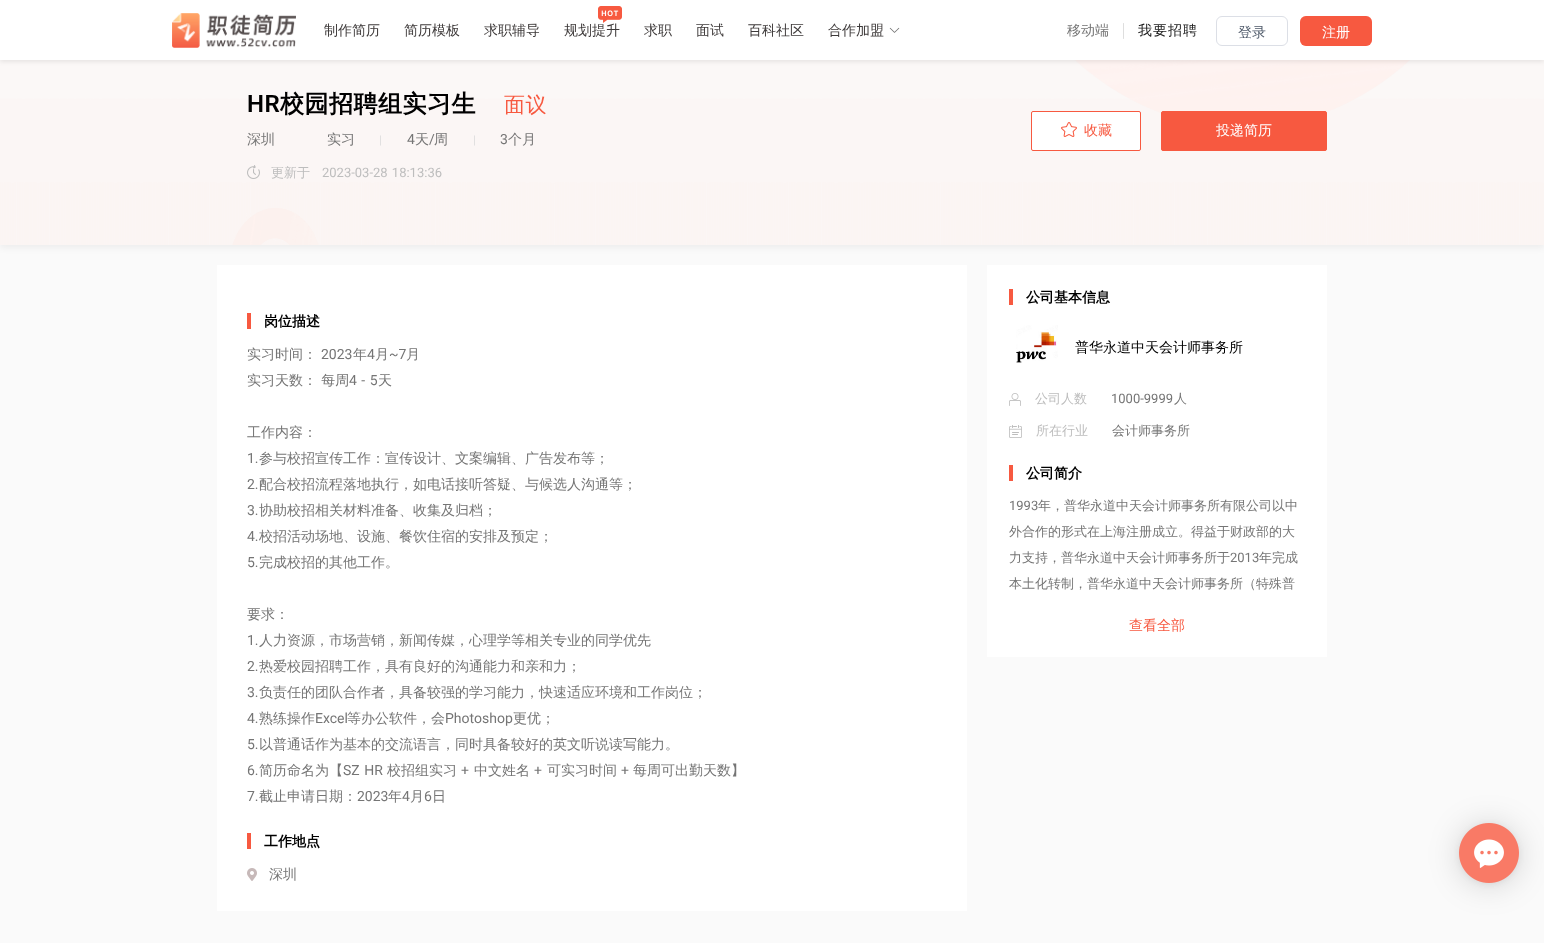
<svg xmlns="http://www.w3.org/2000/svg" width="1544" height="943">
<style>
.a{font:500 14px WenQuanYi Zen Hei;fill:#3e3a3a}
.b{font:500 14px WenQuanYi Zen Hei;fill:#757575}
.c{font:500 14px WenQuanYi Zen Hei;letter-spacing:1px;fill:#212121}
.d{font:500 14px WenQuanYi Zen Hei;fill:#4e5969}
.e{font:500 14px WenQuanYi Zen Hei;fill:#fff}
.f{font:600 24px Roboto;letter-spacing:0.5px;fill:#000}
.g{font:bold 24px WenQuanYi Zen Hei;letter-spacing:0.5px;fill:#000}
.h{font:500 21px WenQuanYi Zen Hei;letter-spacing:0.5px;fill:#f75940}
.i{font:12px Roboto;fill:#dedede}
.j{font:14px Roboto;fill:#757575}
.k{font:500 13px WenQuanYi Zen Hei;fill:#bdbdbd}
.l{font:13px Roboto;fill:#bdbdbd}
.m{font:500 14px WenQuanYi Zen Hei;fill:#f75940}
.n{font:bold 14px WenQuanYi Zen Hei;fill:#000}
.o{font:500 14px WenQuanYi Zen Hei;fill:#000}
.p{font:13px Roboto;fill:#757575}
.q{font:500 13px WenQuanYi Zen Hei;fill:#757575}
</style>
<rect width="100%" height="100%" fill="#fafafa"/>
<path fill="#0600010d" filter="blur(3px)" d="M0 63h1544v185H0z"/>
<image href="5.png" x="0" y="60" width="1544" height="185"/>
<path fill="#00000014" filter="blur(2px)" d="M0 2h1544v60H0z"/>
<path fill="#fff" d="M0 0h1544v60H0z"/>
<image href="1.png" x="172" y="13" width="124" height="35"/>
<image href="2.png" x="598" y="6" width="24" height="17"/>
<image href="3.png" x="889" y="27" width="11" height="6"/>
<image href="4.png" x="1123" y="23" width="1" height="16"/>
<rect fill="none" stroke="#dcdfe6" x="1216.5" y="16.5" width="71" height="29" rx="5.5"/>
<rect fill="#f75940" x="1300" y="16" width="72" height="30" rx="6"/>
<rect fill="none" stroke="#f7594040" x="1300.5" y="16.5" width="71" height="29" rx="5.5"/>
<image href="6.png" x="247" y="165" width="13" height="14"/>
<rect fill="#fff" stroke="#f75940" x="1031.5" y="111.5" width="109" height="39" rx="1.5"/>
<image href="7.png" x="1061" y="122" width="16" height="15"/>
<rect fill="#f75940" stroke="#f75940" x="1161.5" y="111.5" width="165" height="39" rx="1.5"/>
<path fill="#fff" d="M217 265h750v646H217z"/>
<path fill="#f75940" d="M247 313h4v16H247z"/>
<path fill="#f75940" d="M247 833h4v16H247z"/>
<image href="8.png" x="247" y="868" width="10" height="13"/>
<path fill="#fff" d="M987 265h340v392H987z"/>
<path fill="#f75940" d="M1009 289h4v16H1009z"/>
<image href="9.png" x="1016" y="325" width="42" height="38"/>
<image href="10.png" x="1009" y="393" width="12" height="13"/>
<image href="11.png" x="1009" y="425" width="13" height="13"/>
<path fill="#f75940" d="M1009 465h4v16H1009z"/>
<rect fill="#00000029" filter="blur(16px)" x="1459" y="825" width="60" height="60" rx="30"/>
<rect fill="#0000000f" filter="blur(3px)" x="1459" y="824" width="60" height="60" rx="30"/>
<image href="12.png" x="1459" y="823" width="60" height="60"/>
<text class="a" x="324" y="35">制作简历</text>
<text class="a" x="404" y="35">简历模板</text>
<text class="a" x="484" y="35">求职辅导</text>
<text class="a" x="564" y="35">规划提升</text>
<text class="a" x="644" y="35">求职</text>
<text class="a" x="696" y="35">面试</text>
<text class="a" x="748" y="35">百科社区</text>
<text class="a" x="828" y="35">合作加盟</text>
<text class="b" x="1067" y="35">移动端</text>
<text class="c" x="1138" y="35">我要招聘</text>
<text class="d" x="1238" y="37">登录</text>
<text class="e" x="1322" y="37">注册</text>
<text class="f" x="247" y="112">HR</text>
<text class="g" x="280" y="112">校园招聘组实习生</text>
<text class="h" x="504" y="112">面议</text>
<text class="b" x="247" y="144">深圳</text>
<text class="b" x="327" y="144">实习</text>
<text class="i" x="379" y="144">|</text>
<text class="j" x="407" y="144">4</text>
<text class="b" x="415" y="144">天</text>
<text class="j" x="429" y="144">/</text>
<text class="b" x="434" y="144">周</text>
<text class="i" x="473" y="144">|</text>
<text class="j" x="500" y="144">3</text>
<text class="b" x="508" y="144">个月</text>
<text class="k" x="271" y="177">更新于</text>
<text class="l" x="322" y="177" word-spacing="1">2023-03-28 18:13:36</text>
<text class="m" x="1084" y="135">收藏</text>
<text class="e" x="1216" y="135">投递简历</text>
<text class="n" x="264" y="326">岗位描述</text>
<text class="b" x="247" y="359">实习时间：</text>
<text class="j" x="321" y="359">2023</text>
<text class="b" x="353" y="359">年</text>
<text class="j" x="367" y="359">4</text>
<text class="b" x="375" y="359">月</text>
<text class="j" x="389" y="359">~7</text>
<text class="b" x="406" y="359">月</text>
<text class="b" x="247" y="385">实习天数： 每周</text>
<text class="j" x="349" y="385" word-spacing="1">4 - 5</text>
<text class="b" x="378" y="385">天</text>
<text class="b" x="247" y="437">工作内容：</text>
<text class="j" x="247" y="463">1.</text>
<text class="b" x="259" y="463">参与校招宣传工作：宣传设计、文案编辑、广告发布等；</text>
<text class="j" x="247" y="489">2.</text>
<text class="b" x="259" y="489">配合校招流程落地执行，如电话接听答疑、与候选人沟通等；</text>
<text class="j" x="247" y="515">3.</text>
<text class="b" x="259" y="515">协助校招相关材料准备、收集及归档；</text>
<text class="j" x="247" y="541">4.</text>
<text class="b" x="259" y="541">校招活动场地、设施、餐饮住宿的安排及预定；</text>
<text class="j" x="247" y="567">5.</text>
<text class="b" x="259" y="567">完成校招的其他工作。</text>
<text class="b" x="247" y="619">要求：</text>
<text class="j" x="247" y="645">1.</text>
<text class="b" x="259" y="645">人力资源，市场营销，新闻传媒，心理学等相关专业的同学优先</text>
<text class="j" x="247" y="671">2.</text>
<text class="b" x="259" y="671">热爱校园招聘工作，具有良好的沟通能力和亲和力；</text>
<text class="j" x="247" y="697">3.</text>
<text class="b" x="259" y="697">负责任的团队合作者，具备较强的学习能力，快速适应环境和工作岗位；</text>
<text class="j" x="247" y="723">4.</text>
<text class="b" x="259" y="723">熟练操作</text>
<text class="j" x="315" y="723">Excel</text>
<text class="b" x="347" y="723">等办公软件，会</text>
<text class="j" x="445" y="723">Photoshop</text>
<text class="b" x="513" y="723">更优；</text>
<text class="j" x="247" y="749">5.</text>
<text class="b" x="259" y="749">以普通话作为基本的交流语言，同时具备较好的英文听说读写能力。</text>
<text class="j" x="247" y="775">6.</text>
<text class="b" x="259" y="775">简历命名为【</text>
<text class="j" x="343" y="775" word-spacing="1">SZ HR</text>
<text class="b" x="387" y="775">校招组实习</text>
<text class="j" x="461" y="775">+</text>
<text class="b" x="474" y="775">中文姓名</text>
<text class="j" x="534" y="775">+</text>
<text class="b" x="547" y="775">可实习时间</text>
<text class="j" x="621" y="775">+</text>
<text class="b" x="633" y="775">每周可出勤天数】</text>
<text class="j" x="247" y="801">7.</text>
<text class="b" x="259" y="801">截止申请日期：</text>
<text class="j" x="357" y="801">2023</text>
<text class="b" x="388" y="801">年</text>
<text class="j" x="402" y="801">4</text>
<text class="b" x="410" y="801">月</text>
<text class="j" x="424" y="801">6</text>
<text class="b" x="432" y="801">日</text>
<text class="n" x="264" y="846">工作地点</text>
<text class="b" x="269" y="879">深圳</text>
<text class="n" x="1026" y="302">公司基本信息</text>
<text class="o" x="1075" y="352">普华永道中天会计师事务所</text>
<text class="k" x="1035" y="403">公司人数</text>
<text class="p" x="1111" y="403">1000-9999</text>
<text class="q" x="1174" y="403">人</text>
<text class="k" x="1036" y="435">所在行业</text>
<text class="q" x="1112" y="435">会计师事务所</text>
<text class="n" x="1026" y="478">公司简介</text>
<text class="p" x="1009" y="510">1993</text>
<text class="q" x="1038" y="510">年，普华永道中天会计师事务所有限公司以中</text>
<text class="q" x="1009" y="536">外合作的形式在上海注册成立。得益于财政部的大</text>
<text class="q" x="1009" y="562">力支持，普华永道中天会计师事务所于</text>
<text class="p" x="1230" y="562">2013</text>
<text class="q" x="1259" y="562">年完成</text>
<text class="q" x="1009" y="588">本土化转制，普华永道中天会计师事务所（特殊普</text>
<text class="m" x="1129" y="630">查看全部</text>
</svg>
